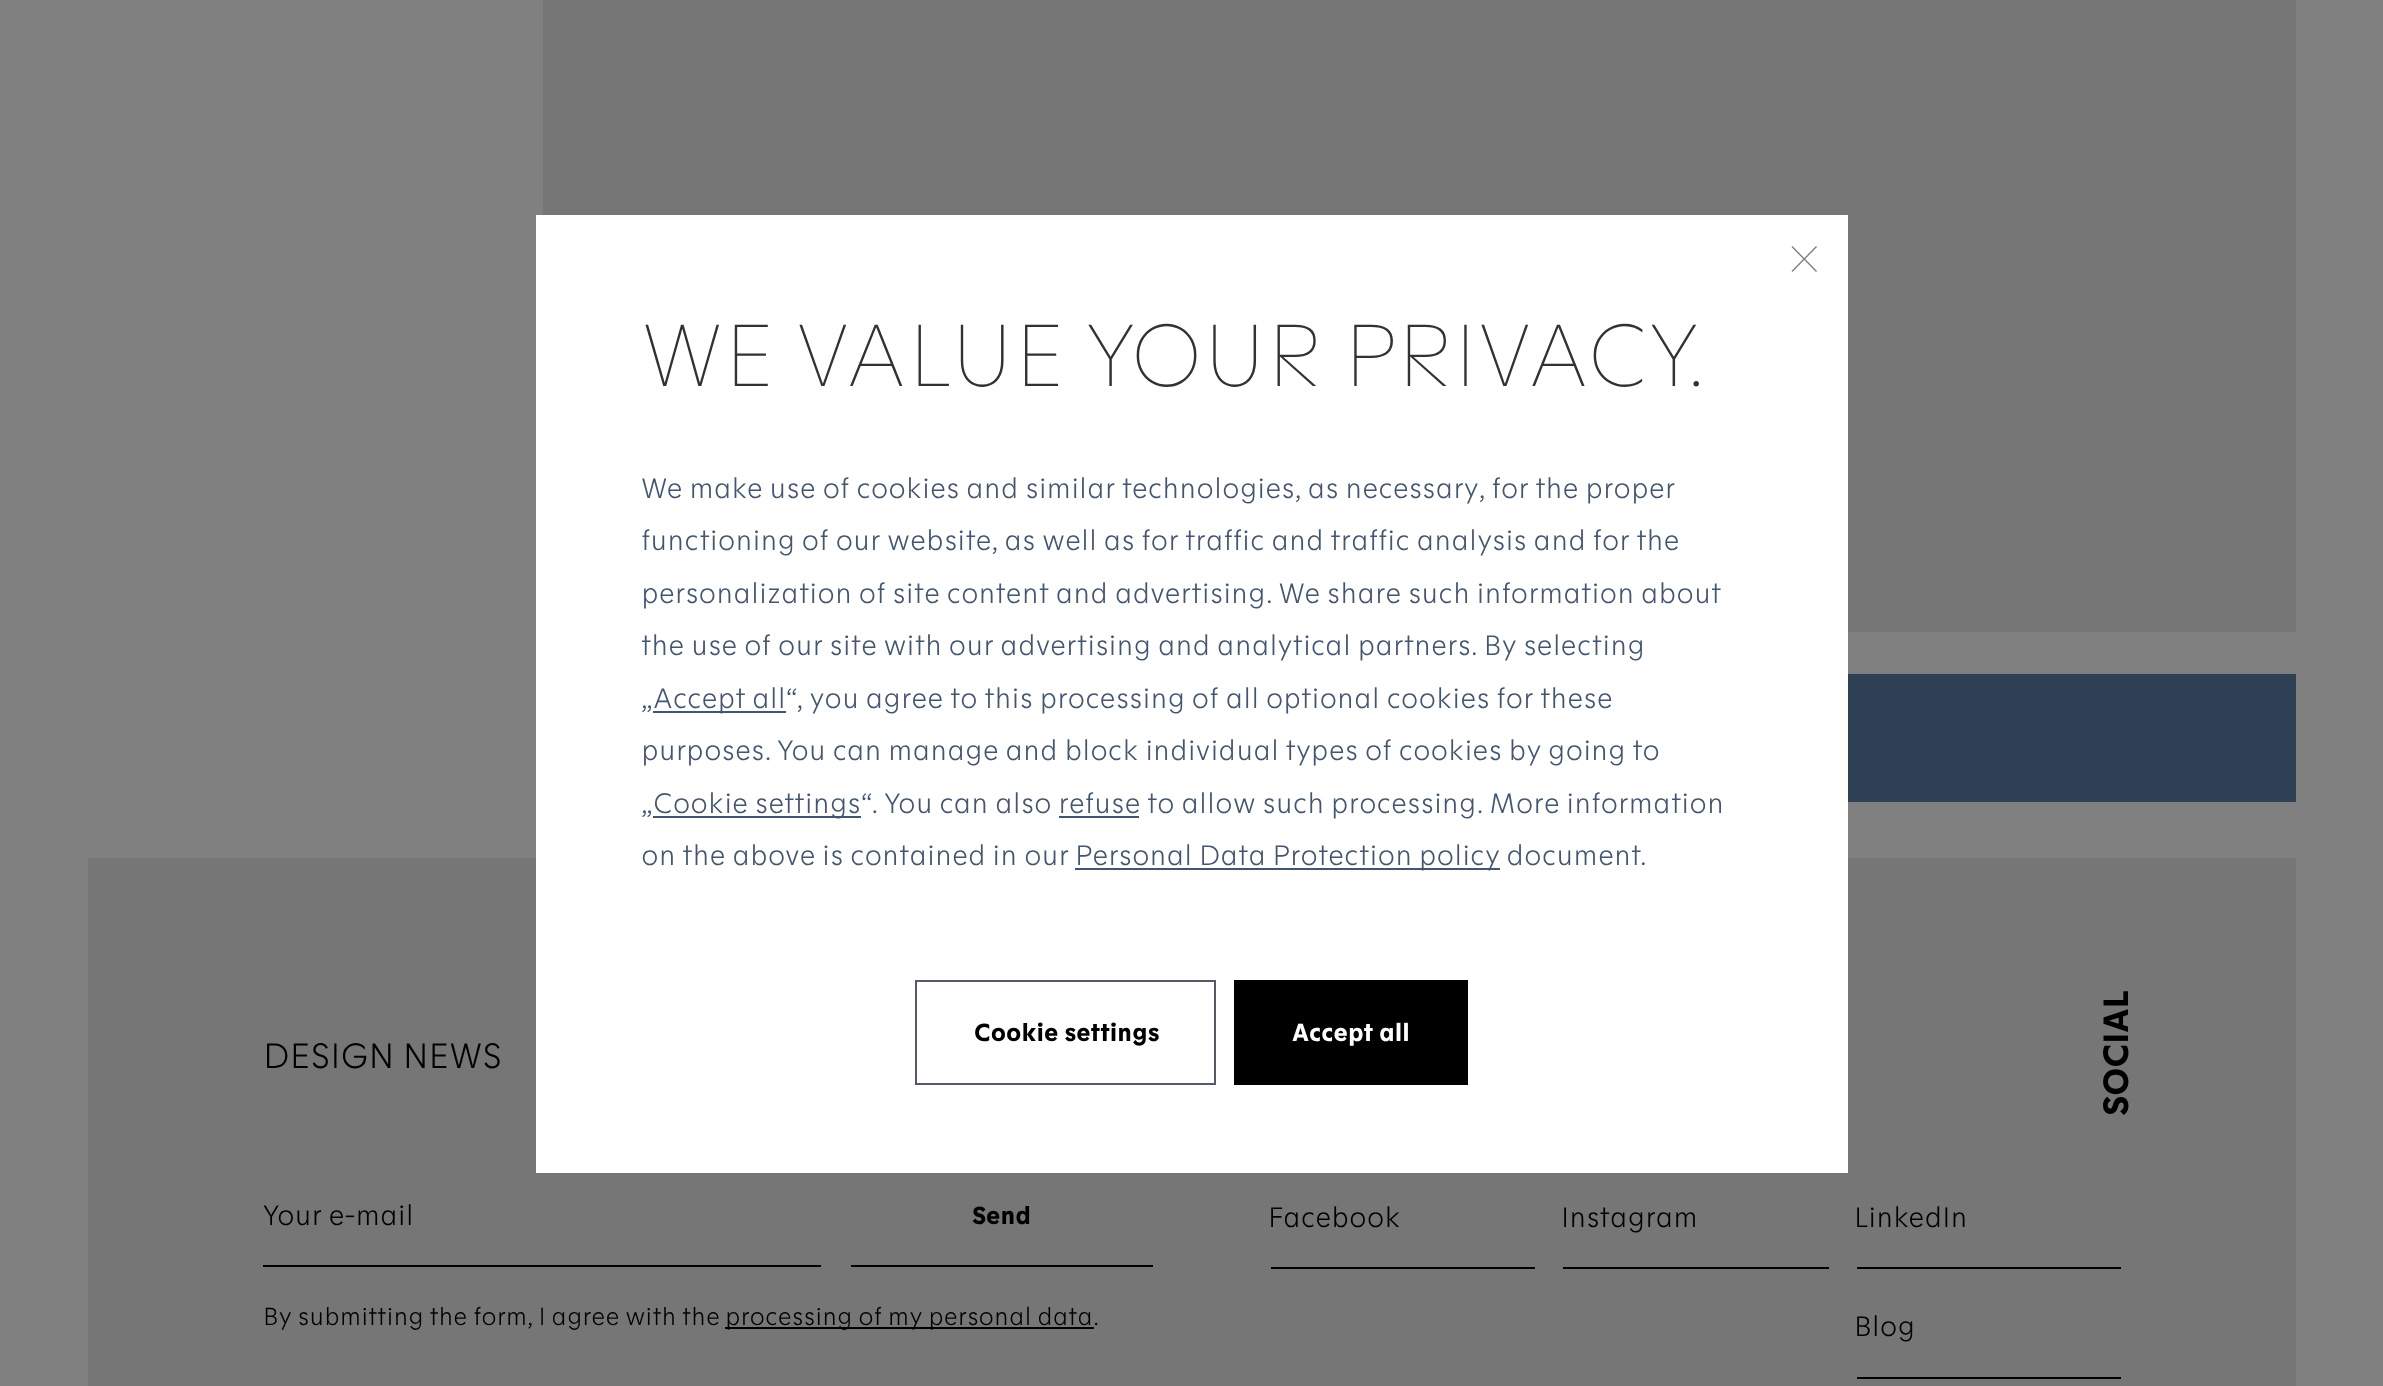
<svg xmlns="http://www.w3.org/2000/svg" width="2383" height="1386">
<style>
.a{font:100 87.5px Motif;fill:#323232}
.b{font:300 28px Motif;fill:#43566f}
.c{font:bold 24.5px Motif;fill:#000}
.d{font:bold 24.5px Motif;fill:#fff}
.e{font:300 35px Motif;fill:#000}
.f{font:300 28px Motif;fill:#000}
.g{font:300 24.5px Motif;fill:#000}
.h{font:bold 35px Motif;fill:#000}
</style>
<rect width="100%" height="100%" fill="#808080"/>
<path fill="#767677" d="M543 0h1753v632H543z"/>
<path fill="#2e4053" d="M1848 674h448v128H1848z"/>
<path fill="#767677" d="M88 858h2208v528H88z"/>
<path fill="#fff" d="M536 215h1312v958H536z"/>
<path fill="#808080" d="M1792.5 246l24.5 25l-1 1l-24.5-25z"/>
<path fill="#808080" d="M1791.5 271l24.5-25l1 1l-24.5 25z"/>
<path fill="#43566f" d="M653 711h133v2H653z"/>
<path fill="#43566f" d="M653 816h208v2H653z"/>
<path fill="#43566f" d="M1059 816h80v2H1059z"/>
<path fill="#43566f" d="M1075 868h425v2H1075z"/>
<path fill="none" stroke="#565968" stroke-width="2" d="M916 981h299v103H916z"/>
<path fill="#000" d="M1234 980h234v105H1234z"/>
<path fill="#000" d="M263 1265h558v2H263z"/>
<path fill="#000" d="M851 1265h302v2H851z"/>
<path fill="#000" d="M725 1327h369v2H725z"/>
<path fill="#000" d="M1271 1267h264v2H1271z"/>
<path fill="#000" d="M1563 1267h266v2H1563z"/>
<path fill="#000" d="M1857 1267h264v2H1857z"/>
<path fill="#000" d="M1857 1377h264v2H1857z"/>
<text class="a" x="641" y="386">WE VALUE YOUR PRIVACY.</text>
<text class="b" x="641" y="498">We make use of cookies and similar technologies, as necessary, for the proper</text>
<text class="b" x="641" y="550">functioning of our website, as well as for traffic and traffic analysis and for the</text>
<text class="b" x="641" y="603">personalization of site content and advertising. We share such information about</text>
<text class="b" x="641" y="655">the use of our site with our advertising and analytical partners. By selecting</text>
<text class="b" x="641" y="708">„</text>
<text class="b" x="653" y="708">Accept all“, you agree to this processing of all optional cookies for these</text>
<text class="b" x="641" y="760">purposes. You can manage and block individual types of cookies by going to</text>
<text class="b" x="641" y="813">„</text>
<text class="b" x="653" y="813">Cookie settings“. You can also refuse to allow such processing. More information</text>
<text class="b" x="641" y="865">on the above is contained in our</text>
<text class="b" x="1075" y="865">Personal Data Protection policy document.</text>
<text class="c" x="974" y="1041">Cookie settings</text>
<text class="d" x="1292" y="1041">Accept all</text>
<text class="e" x="263" y="1068">DESIGN NEWS</text>
<text class="f" x="263" y="1225">Your e-mail</text>
<text class="c" x="972" y="1224">Send</text>
<text class="g" x="263" y="1325">By submitting the form, I agree with the</text>
<text class="g" x="725" y="1325">processing of my personal data</text>
<text class="g" x="1093" y="1325">.</text>
<text class="h" x="2128" y="1116" transform="rotate(-90 2128 1116)">SOCIAL</text>
<text class="f" x="1268" y="1227">Facebook</text>
<text class="f" x="1561" y="1227">Instagram</text>
<text class="f" x="1854" y="1227">LinkedIn</text>
<text class="f" x="1854" y="1336">Blog</text>
</svg>
